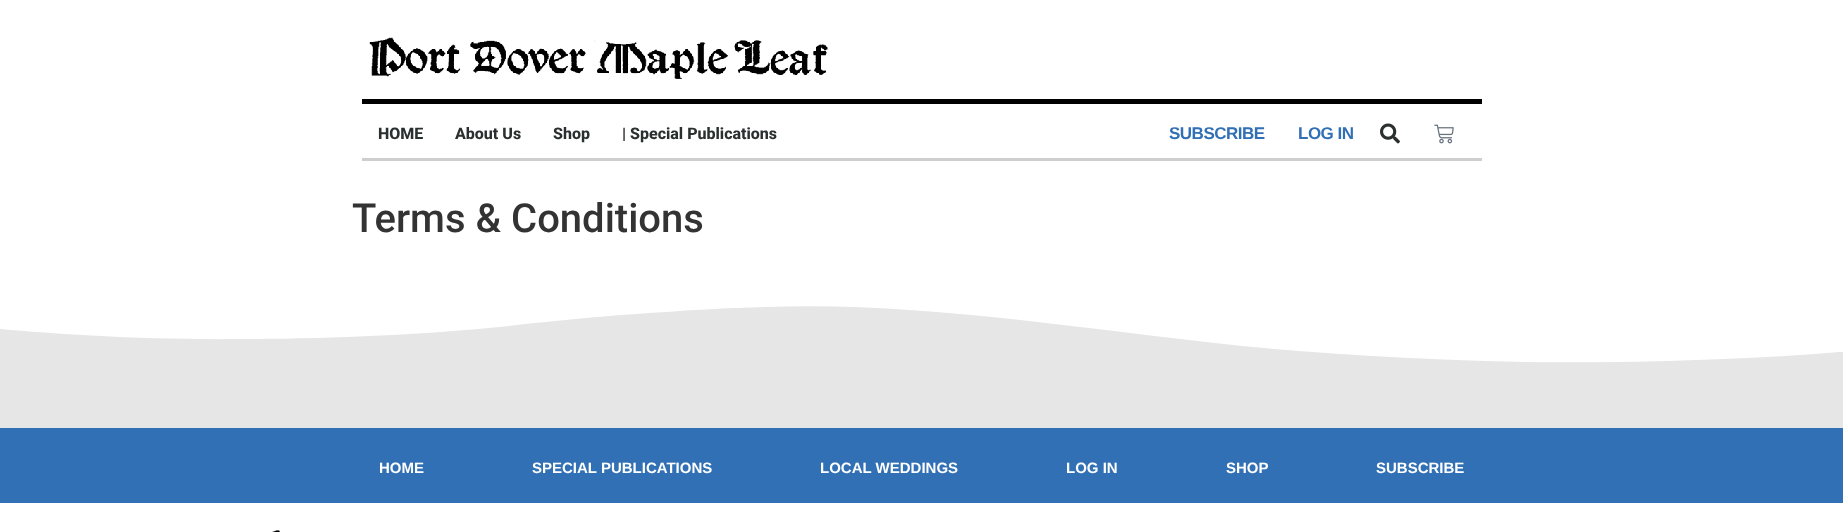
<svg xmlns="http://www.w3.org/2000/svg" width="1843" height="532">
<style>
.a{font:800 16px Roboto;fill:#2a302f}
.b{font:bold 17px Liberation Sans;letter-spacing:-0.5px;fill:#3170b4}
.c{font:500 40px Roboto;fill:#333}
.d{font:bold 15px Liberation Sans;fill:#fff}
</style>
<rect width="100%" height="100%" fill="#fff"/>
<image href="1.png" x="369" y="37" width="459" height="42"/>
<path fill="#000" d="M362 99h1120v5H362z"/>
<image href="2.png" x="1380" y="123" width="20" height="21"/>
<image href="3.png" x="1434" y="124" width="20" height="20"/>
<path fill="#cecece" d="M362 158h1120v3H362z"/>
<path fill="#e6e6e6" d="M0 306h1843v122H0z"/>
<path fill="#fff" d="M766 307c171-6 339 27 508 42c131 11 263 16 394 12c84-2 167-7 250-17v-41h-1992v18c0 0 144 20 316 18c78 0 184-4 267-13c42-5 103-11 158-14c54-4 79-4 99-5z"/>
<path fill="#3170b4" d="M0 428h1843v75H0z"/>
<image href="4.png" x="272" y="530" width="8" height="2"/>
<text class="a" x="378" y="139">HOME</text>
<text class="a" x="455" y="139">About Us</text>
<text class="a" x="553" y="139">Shop</text>
<text class="a" x="622" y="139">| Special Publications</text>
<text class="b" x="1169" y="139">SUBSCRIBE</text>
<text class="b" x="1298" y="139">LOG IN</text>
<text class="c" x="352" y="232">Terms &amp; Conditions</text>
<text class="d" x="379" y="473">HOME</text>
<text class="d" x="532" y="473">SPECIAL PUBLICATIONS</text>
<text class="d" x="820" y="473">LOCAL WEDDINGS</text>
<text class="d" x="1066" y="473">LOG IN</text>
<text class="d" x="1226" y="473">SHOP</text>
<text class="d" x="1376" y="473">SUBSCRIBE</text>
</svg>
